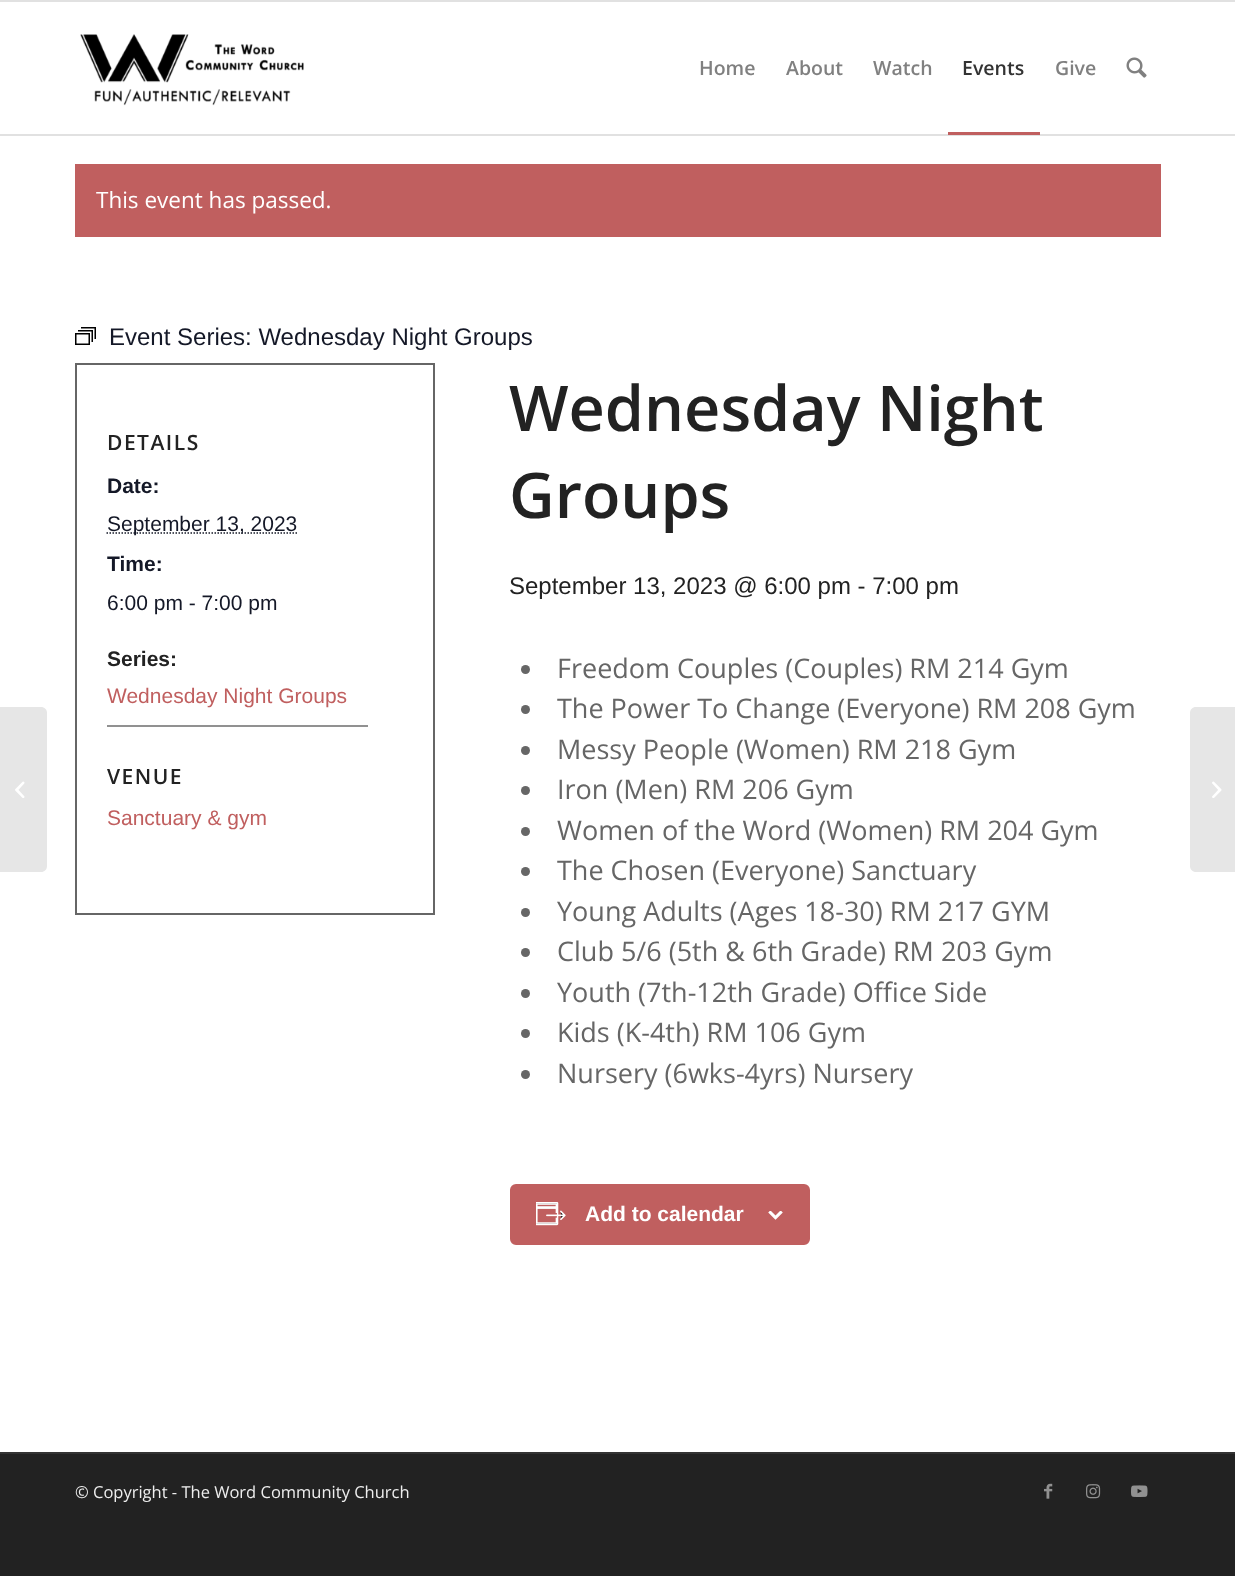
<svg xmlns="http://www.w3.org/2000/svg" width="1235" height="1576">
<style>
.a{font:600 19.5px Open Sans;fill:#808080}
.b{font:600 19.5px Open Sans;fill:#333}
.c{font:22.5px Open Sans;fill:#fff}
.d{font:24px Liberation Sans;fill:#141827}
.e{font:600 21px Open Sans;letter-spacing:1.5px;fill:#222}
.f{font:bold 21px Liberation Sans;fill:#141827}
.g{font:21px Liberation Sans;fill:#141827}
.h{font:bold 21px Liberation Sans;fill:#222}
.i{font:21px Liberation Sans;fill:#c05f5f}
.j{font:600 63px Open Sans;fill:#222}
.k{font:24px Liberation Sans;fill:#222}
.l{font:27px Open Sans;fill:#666}
.m{font:bold 21px Liberation Sans;fill:#fff}
.n{font:16.5px Open Sans;fill:#eee}
</style>
<rect width="100%" height="100%" fill="#222"/>
<path fill="#fff" d="M0 136h1235v1316H0z"/>
<path fill="#fff" d="M0 2h1235v132H0z"/>
<path fill="#e1e1e1" d="M0 0h1235v2H0z"/>
<path fill="#e1e1e1" d="M0 134h1235v2H0z"/>
<image href="1.png" x="80" y="34" width="224" height="72"/>
<path fill="#c05f5f" d="M948 132h92v3H948z"/>
<image href="2.png" x="1126" y="57" width="21" height="21"/>
<path fill="#e6e6e6" d="M0 707h41c3.5 0 6 2.5 6 6v153c0 3.5-2.5 6-6 6h-41z"/>
<image href="3.png" x="15" y="781" width="10" height="17"/>
<path fill="#c05f5f" d="M75 164h1086v73H75z"/>
<image href="4.png" x="75" y="327" width="21" height="18"/>
<path fill="none" stroke="#666" stroke-width="2" d="M76 364h358v550H76z"/>
<path fill="none" stroke="#141827" stroke-width="1.5" stroke-dasharray="1.5 1.5" d="M106.5 533h190.5"/>
<path fill="#919191" d="M107 725h261v2H107z"/>
<circle fill="#666" cx="525.5" cy="669.5" r="4.5"/>
<circle fill="#666" cx="525.5" cy="709.5" r="4.5"/>
<circle fill="#666" cx="525.5" cy="750.5" r="4.5"/>
<circle fill="#666" cx="525.5" cy="790.5" r="4.5"/>
<circle fill="#666" cx="525.5" cy="831.5" r="4.5"/>
<circle fill="#666" cx="525.5" cy="871.5" r="4.5"/>
<circle fill="#666" cx="525.5" cy="912.5" r="4.5"/>
<circle fill="#666" cx="525.5" cy="952.5" r="4.5"/>
<circle fill="#666" cx="525.5" cy="993.5" r="4.5"/>
<circle fill="#666" cx="525.5" cy="1033.5" r="4.5"/>
<circle fill="#666" cx="525.5" cy="1074.5" r="4.5"/>
<rect fill="#c05f5f" stroke="#c05f5f" stroke-width="2" x="511" y="1185" width="298" height="59" rx="5"/>
<image href="5.png" x="536" y="1202" width="30" height="24"/>
<image href="6.png" x="768" y="1211" width="15" height="9"/>
<path fill="#333" d="M0 1452h1235v2H0z"/>
<image href="7.png" x="1044" y="1483" width="9" height="16"/>
<image href="8.png" x="1086" y="1484" width="15" height="15"/>
<image href="9.png" x="1131" y="1485" width="17" height="12"/>
<path fill="#e6e6e6" d="M1196 707h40v165h-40c-3.5 0-6-2.5-6-6v-153c0-3.5 2.5-6 6-6z"/>
<image href="10.png" x="1212" y="781" width="10" height="17"/>
<text class="a" x="699" y="75">Home</text>
<text class="a" x="786" y="75">About</text>
<text class="a" x="873" y="75">Watch</text>
<text class="b" x="962" y="75">Events</text>
<text class="a" x="1055" y="75">Give</text>
<text class="c" x="96" y="208">This event has passed.</text>
<text class="d" x="109" y="345">Event Series: Wednesday Night Groups</text>
<text class="e" x="107" y="450">DETAILS</text>
<text class="f" x="107" y="493">Date:</text>
<text class="g" x="107" y="531">September 13, 2023</text>
<text class="f" x="107" y="571">Time:</text>
<text class="g" x="107" y="610">6:00 pm - 7:00 pm</text>
<text class="h" x="107" y="666">Series:</text>
<text class="i" x="107" y="703">Wednesday Night Groups</text>
<text class="e" x="107" y="784">VENUE</text>
<text class="i" x="107" y="825">Sanctuary &amp; gym</text>
<text class="j" x="509" y="431">Wednesday Night</text>
<text class="j" x="509" y="518">Groups</text>
<text class="k" x="509" y="594">September 13, 2023 @ 6:00 pm - 7:00 pm</text>
<text class="l" x="557" y="678">Freedom Couples (Couples) RM 214 Gym</text>
<text class="l" x="557" y="718">The Power To Change (Everyone) RM 208 Gym</text>
<text class="l" x="557" y="759">Messy People (Women) RM 218 Gym</text>
<text class="l" x="557" y="799">Iron (Men) RM 206 Gym</text>
<text class="l" x="557" y="840">Women of the Word (Women) RM 204 Gym</text>
<text class="l" x="557" y="880">The Chosen (Everyone) Sanctuary</text>
<text class="l" x="557" y="921">Young Adults (Ages 18-30) RM 217 GYM</text>
<text class="l" x="557" y="961">Club 5/6 (5th &amp; 6th Grade) RM 203 Gym</text>
<text class="l" x="557" y="1002">Youth (7th-12th Grade) Office Side</text>
<text class="l" x="557" y="1042">Kids (K-4th) RM 106 Gym</text>
<text class="l" x="557" y="1083">Nursery (6wks-4yrs) Nursery</text>
<text class="m" x="585" y="1221">Add to calendar</text>
<text class="n" x="75" y="1498">© Copyright - The Word Community Church</text>
</svg>
